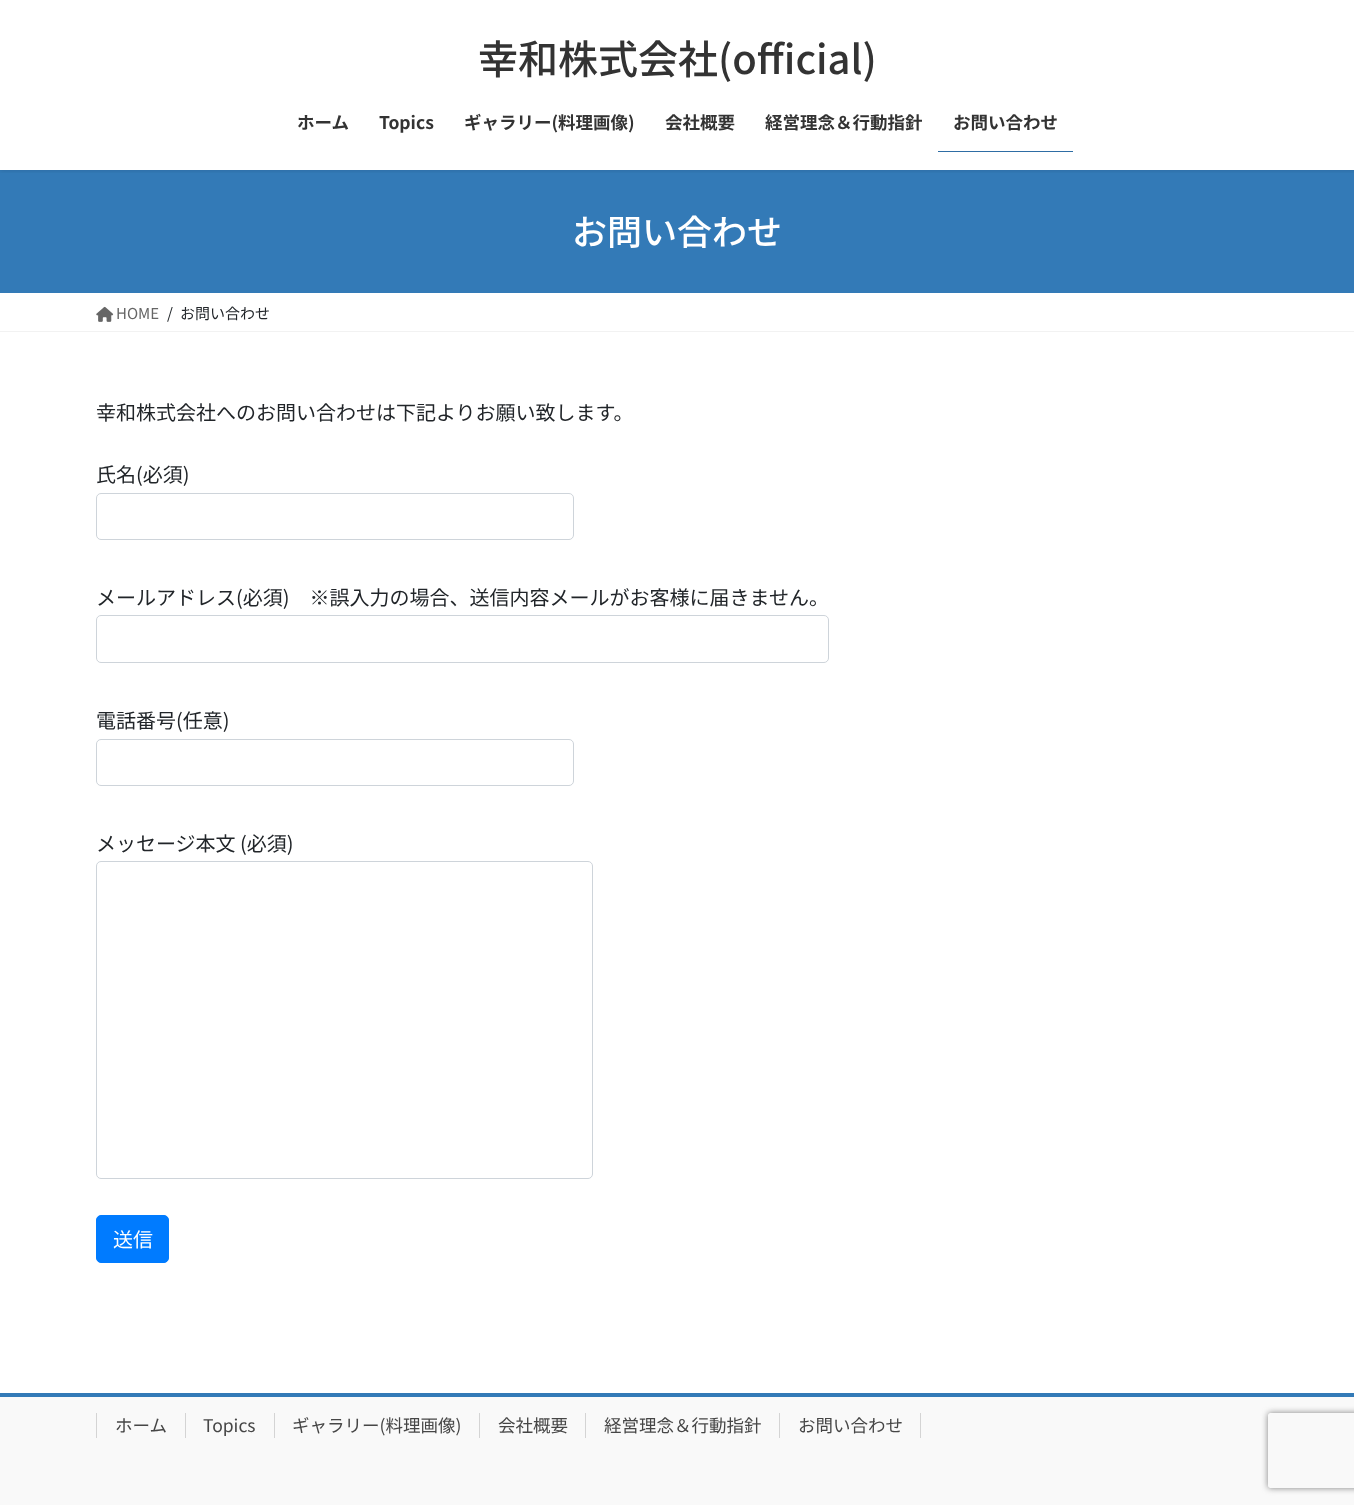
<svg xmlns="http://www.w3.org/2000/svg" width="1354" height="1505">
<style>
.a{font:500 40px Noto Sans JP;fill:#333}
.b{font:bold 17.5px Noto Sans JP;fill:#333}
.c{font:500 35px Noto Sans JP;fill:#fff}
.d{font:15px Noto Sans JP;fill:#666}
.e{font:15px Noto Sans JP;fill:#212529}
.f{font:20px Noto Sans JP;fill:#212529}
.g{font:20px Noto Sans JP;fill:#fff}
.h{font:17.5px Noto Sans JP;fill:#464646}
</style>
<defs>
<clipPath id="clip1"><path d="M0 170h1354v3H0z"/></clipPath>
<clipPath id="clip2"><path d="M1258 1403h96v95h-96zm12.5 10h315c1.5 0 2.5 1 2.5 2.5v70c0 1.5-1 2.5-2.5 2.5h-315c-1.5 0-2.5-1-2.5-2.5v-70c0-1.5 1-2.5 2.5-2.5z" clip-rule="evenodd"/></clipPath>
</defs>
<rect width="100%" height="100%" fill="#fff"/>
<path fill="#337ab7" d="M0 170h1354v123H0z"/>
<g clip-path="url(#clip1)">
<path fill="#0000001a" filter="blur(2px)" d="M0 1h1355v170H0z"/>
</g>
<path fill="#2e6da4" d="M938 151h135v1H938z"/>
<path fill="#f2f2f2" d="M0 331h1354v1H0z"/>
<image href="1.png" x="96" y="306" width="18" height="16"/>
<rect fill="none" stroke="#ced4da" x="96.5" y="493.5" width="477" height="46" rx="4.5"/>
<rect fill="none" stroke="#ced4da" x="96.5" y="615.5" width="732" height="47" rx="4.5"/>
<rect fill="none" stroke="#ced4da" x="96.5" y="739.5" width="477" height="46" rx="4.5"/>
<rect fill="none" stroke="#ced4da" x="96.5" y="861.5" width="496" height="317" rx="4.5"/>
<rect fill="#007bff" stroke="#007bff" x="96.5" y="1215.5" width="72" height="47" rx="4.5"/>
<path fill="#f9f9f9" d="M0 1397h1354v108H0z"/>
<path fill="#337ab7" d="M0 1393h1354v4H0z"/>
<path fill="#d4d4d4" d="M96 1413h1v25H96z"/>
<path fill="#d4d4d4" d="M185 1413h1v25H185z"/>
<path fill="#d4d4d4" d="M274 1413h1v25H274z"/>
<path fill="#d4d4d4" d="M479 1413h1v25H479z"/>
<path fill="#d4d4d4" d="M585 1413h1v25H585z"/>
<path fill="#d4d4d4" d="M920 1413h1v25H920z"/>
<path fill="#d4d4d4" d="M779 1413h1v25H779z"/>
<g clip-path="url(#clip2)">
<rect fill="#808080" filter="blur(3px)" x="1268" y="1413" width="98" height="75" rx="2.5"/>
</g>
<text class="a" x="478" y="74">幸和株式会社(official)</text>
<text class="b" x="297" y="129">ホーム</text>
<text class="b" x="379" y="129">Topics</text>
<text class="b" x="464" y="129">ギャラリー(料理画像)</text>
<text class="b" x="665" y="129">会社概要</text>
<text class="b" x="765" y="129">経営理念＆行動指針</text>
<text class="b" x="953" y="129">お問い合わせ</text>
<text class="c" x="572" y="245">お問い合わせ</text>
<text class="d" x="116" y="319">HOME</text>
<text class="e" x="167" y="319">/</text>
<text class="e" x="180" y="319">お問い合わせ</text>
<text class="f" x="96" y="420">幸和株式会社へのお問い合わせは下記よりお願い致します。</text>
<text class="f" x="96" y="482">氏名(必須)</text>
<text class="f" x="96" y="605">メールアドレス(必須)　※誤入力の場合、送信内容メールがお客様に届きません。</text>
<text class="f" x="96" y="728">電話番号(任意)</text>
<text class="f" x="96" y="851">メッセージ本文 (必須)</text>
<text class="g" x="113" y="1247">送信</text>
<text class="h" x="115" y="1432">ホーム</text>
<text class="h" x="203" y="1432">Topics</text>
<text class="h" x="292" y="1432">ギャラリー(料理画像)</text>
<text class="h" x="498" y="1432">会社概要</text>
<text class="h" x="604" y="1432">経営理念＆行動指針</text>
<text class="h" x="798" y="1432">お問い合わせ</text>
</svg>
